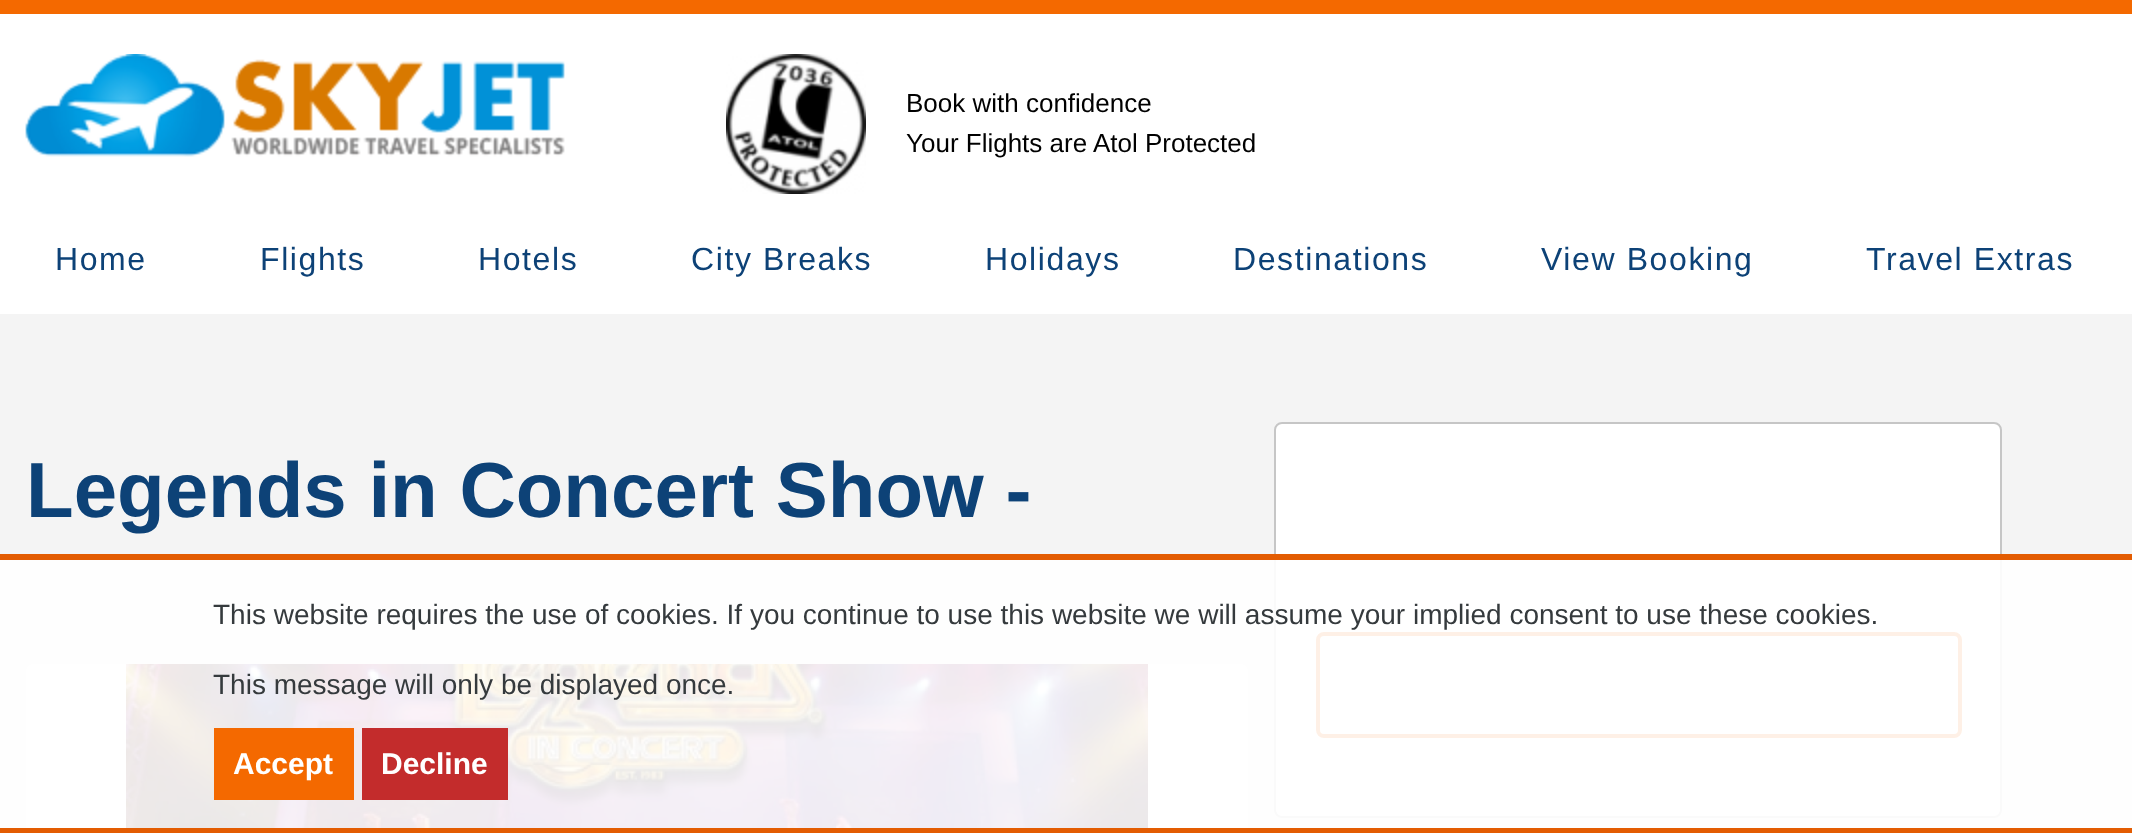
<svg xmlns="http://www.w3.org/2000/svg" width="2132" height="833">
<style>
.a{font:26px Arimo;fill:#000}
.b{font:32px Arimo;letter-spacing:1.6px;fill:#0d4277}
.c{font:bold 78px Arimo;fill:#0d4277}
.d{font:28px Arimo;fill:#353a3d}
.e{font:bold 30px Arimo;fill:#fff}
</style>
<rect width="100%" height="100%" fill="#f4f4f4"/>
<path fill="#fff" d="M0 14h2132v300H0z"/>
<path fill="#f46900" d="M0 0h2132v14H0z"/>
<image href="1.png" x="25" y="54" width="540" height="103"/>
<image href="2.png" x="726" y="54" width="140" height="140"/>
<rect fill="#fff" x="26" y="664" width="1222" height="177" rx="8"/>
<image href="3.png" x="126" y="664" width="1022" height="164"/>
<rect fill="#fff" stroke="#c6c6c6" stroke-width="2" x="1275" y="423" width="726" height="394" rx="7"/>
<rect fill="none" stroke="#f46900" stroke-width="4" x="1318" y="634" width="642" height="102" rx="6"/>
<path fill="#ffffffe6" d="M0 560h2132v268H0z"/>
<path fill="#e35c02" d="M0 554h2132v6H0z"/>
<path fill="#e35c02" d="M0 828h2132v5H0z"/>
<path fill="#f46900" d="M214 728h140v72H214z"/>
<path fill="#c32c2c" d="M362 728h146v72H362z"/>
<text class="a" x="906" y="112">Book with confidence</text>
<text class="a" x="906" y="152">Your Flights are Atol Protected</text>
<text class="b" x="55" y="270">Home</text>
<text class="b" x="260" y="270">Flights</text>
<text class="b" x="478" y="270">Hotels</text>
<text class="b" x="691" y="270">City Breaks</text>
<text class="b" x="985" y="270">Holidays</text>
<text class="b" x="1233" y="270">Destinations</text>
<text class="b" x="1541" y="270">View Booking</text>
<text class="b" x="1866" y="270">Travel Extras</text>
<text class="c" x="26" y="517">Legends in Concert Show -</text>
<text class="d" x="213" y="624">This website requires the use of cookies. If you continue to use this website we will assume your implied consent to use these cookies.</text>
<text class="d" x="213" y="694">This message will only be displayed once.</text>
<text class="e" x="233" y="774">Accept</text>
<text class="e" x="381" y="774">Decline</text>
</svg>
